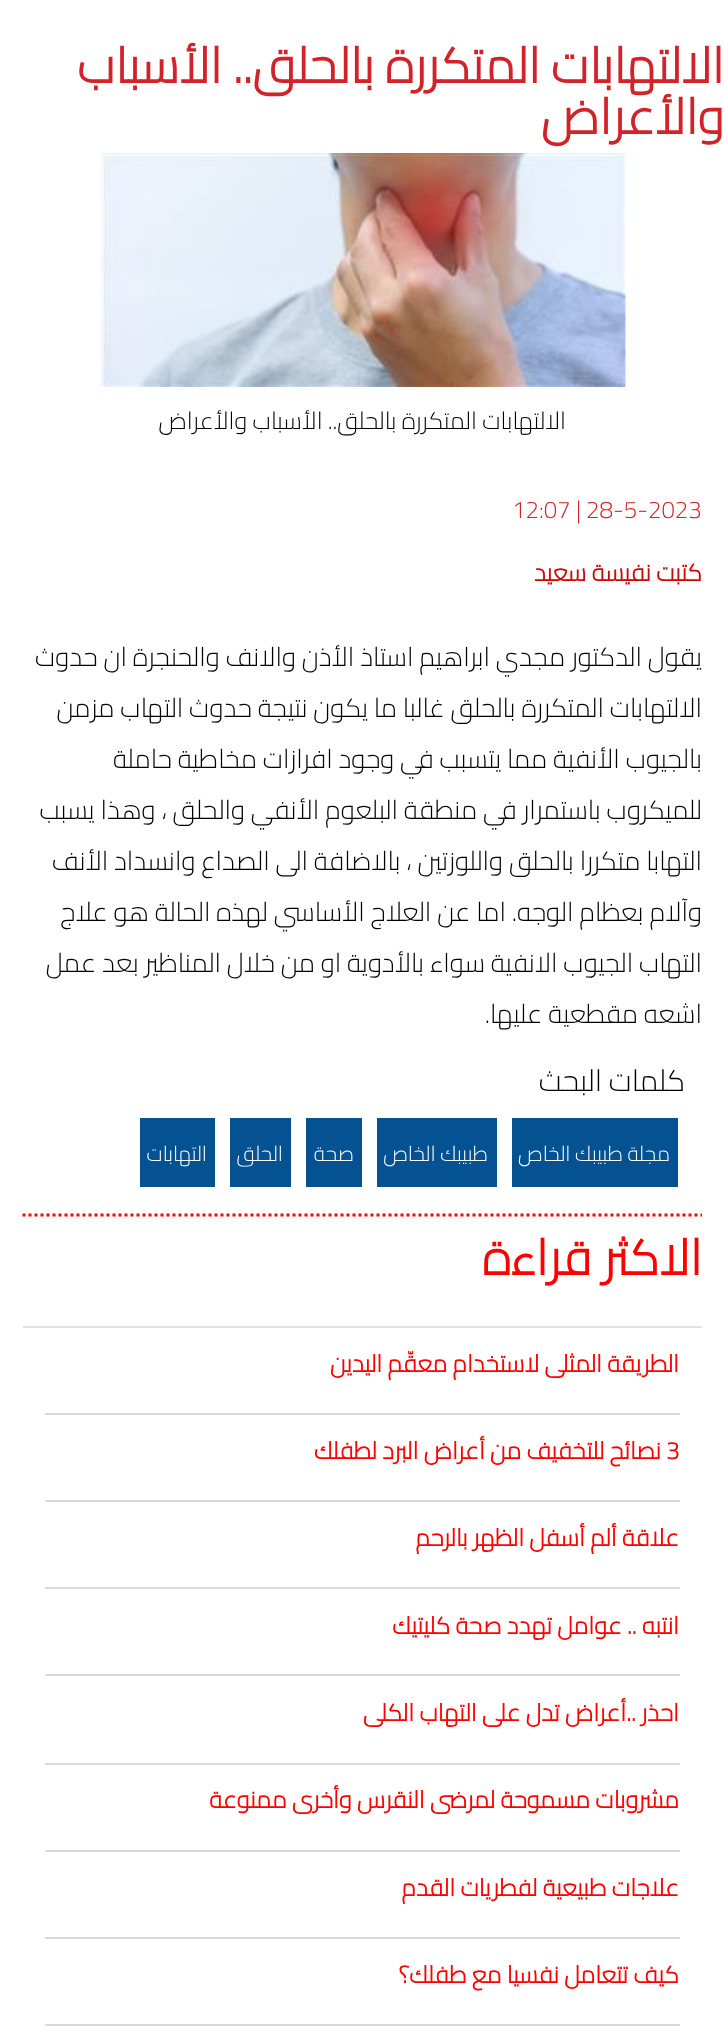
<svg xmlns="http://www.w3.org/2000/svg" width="724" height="2035">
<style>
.a{font:bold 49.5px Cairo;direction:rtl;fill:#d2232a}
.b{font:300 24px Cairo;direction:rtl;fill:#000}
.c{font:300 24px Cairo;fill:#d2232a}
.d{font:bold 24px Cairo;direction:rtl;fill:#ca0808}
.e{font:300 26.4px Cairo;direction:rtl;fill:#000}
.f{font:300 30px Cairo;direction:rtl;fill:#000}
.g{font:300 21px Cairo;direction:rtl;fill:#fff}
.h{font:bold 49.5px Cairo;direction:rtl;fill:#f00}
.i{font:bold 24px Cairo;direction:rtl;fill:#f00}
.j{font:bold 24px Cairo;fill:#f00}
</style>
<rect width="100%" height="100%" fill="#fff"/>
<image href="1.png" x="100" y="153" width="526" height="234"/>
<path fill="#055293" d="M512 1118h166v69H512z"/>
<path fill="#055293" d="M377 1118h120v69H377z"/>
<path fill="#055293" d="M306 1118h56v69H306z"/>
<path fill="#055293" d="M230 1118h61v69H230z"/>
<path fill="#055293" d="M140 1118h75v69H140z"/>
<path fill="none" stroke="#f00" stroke-width="3" stroke-dasharray="3 3" d="M22.5 1215h679.5"/>
<path fill="#dee2e6" d="M23 1326h679v2H23z"/>
<path fill="#dadada" d="M45 1413h635v2H45z"/>
<path fill="#dadada" d="M45 1500h635v2H45z"/>
<path fill="#dadada" d="M45 1587h635v2H45z"/>
<path fill="#dadada" d="M45 1674h635v2H45z"/>
<path fill="#dadada" d="M45 1763h635v2H45z"/>
<path fill="#dadada" d="M45 1850h635v2H45z"/>
<path fill="#dadada" d="M45 1937h635v2H45z"/>
<path fill="#dadada" d="M45 2024h635v2H45z"/>
<text class="a" x="724" y="83">الالتهابات المتكررة بالحلق.. الأسباب</text>
<text class="a" x="724" y="134">والأعراض</text>
<text class="b" x="566" y="429">الالتهابات المتكررة بالحلق.. الأسباب والأعراض</text>
<text class="c" x="586" y="518">28-5-2023</text>
<text class="c" x="576" y="518">|</text>
<text class="c" x="512" y="518">12:07</text>
<text class="d" x="702" y="581">كتبت نفيسة سعيد</text>
<text class="e" x="702" y="666">يقول الدكتور مجدي ابراهيم استاذ الأذن والانف والحنجرة ان حدوث</text>
<text class="e" x="702" y="717">الالتهابات المتكررة بالحلق غالبا ما يكون نتيجة حدوث التهاب مزمن</text>
<text class="e" x="702" y="768">بالجيوب الأنفية مما يتسبب في وجود افرازات مخاطية حاملة</text>
<text class="e" x="702" y="819">للميكروب باستمرار في منطقة البلعوم الأنفي والحلق ، وهذا يسبب</text>
<text class="e" x="702" y="870">التهابا متكررا بالحلق واللوزتين ، بالاضافة الى الصداع وانسداد الأنف</text>
<text class="e" x="702" y="921">وآلام بعظام الوجه.</text>
<text class="e" x="506" y="921">اما عن العلاج الأساسي لهذه الحالة هو علاج</text>
<text class="e" x="702" y="972">التهاب الجيوب الانفية سواء بالأدوية او من خلال المناظير بعد عمل</text>
<text class="e" x="702" y="1023">اشعه مقطعية عليها.</text>
<text class="f" x="685" y="1091">كلمات البحث</text>
<text class="g" x="670" y="1161">مجلة طبيبك الخاص</text>
<text class="g" x="488" y="1161">طبيبك الخاص</text>
<text class="g" x="354" y="1161">صحة</text>
<text class="g" x="283" y="1161">الحلق</text>
<text class="g" x="207" y="1161">التهابات</text>
<text class="h" x="702" y="1275">الاكثر قراءة</text>
<text class="i" x="679" y="1372">الطريقة المثلى لاستخدام معقّم اليدين</text>
<text class="j" x="666" y="1459">3</text>
<text class="i" x="661" y="1459">نصائح للتخفيف من أعراض البرد لطفلك</text>
<text class="i" x="679" y="1546">علاقة ألم أسفل الظهر بالرحم</text>
<text class="i" x="679" y="1634">انتبه .. عوامل تهدد صحة كليتيك</text>
<text class="i" x="679" y="1721">احذر ..أعراض تدل على التهاب الكلى</text>
<text class="i" x="679" y="1808">مشروبات مسموحة لمرضى النقرس وأخرى ممنوعة</text>
<text class="i" x="679" y="1896">علاجات طبيعية لفطريات القدم</text>
<text class="i" x="679" y="1983">كيف تتعامل نفسيا مع طفلك؟</text>
</svg>
